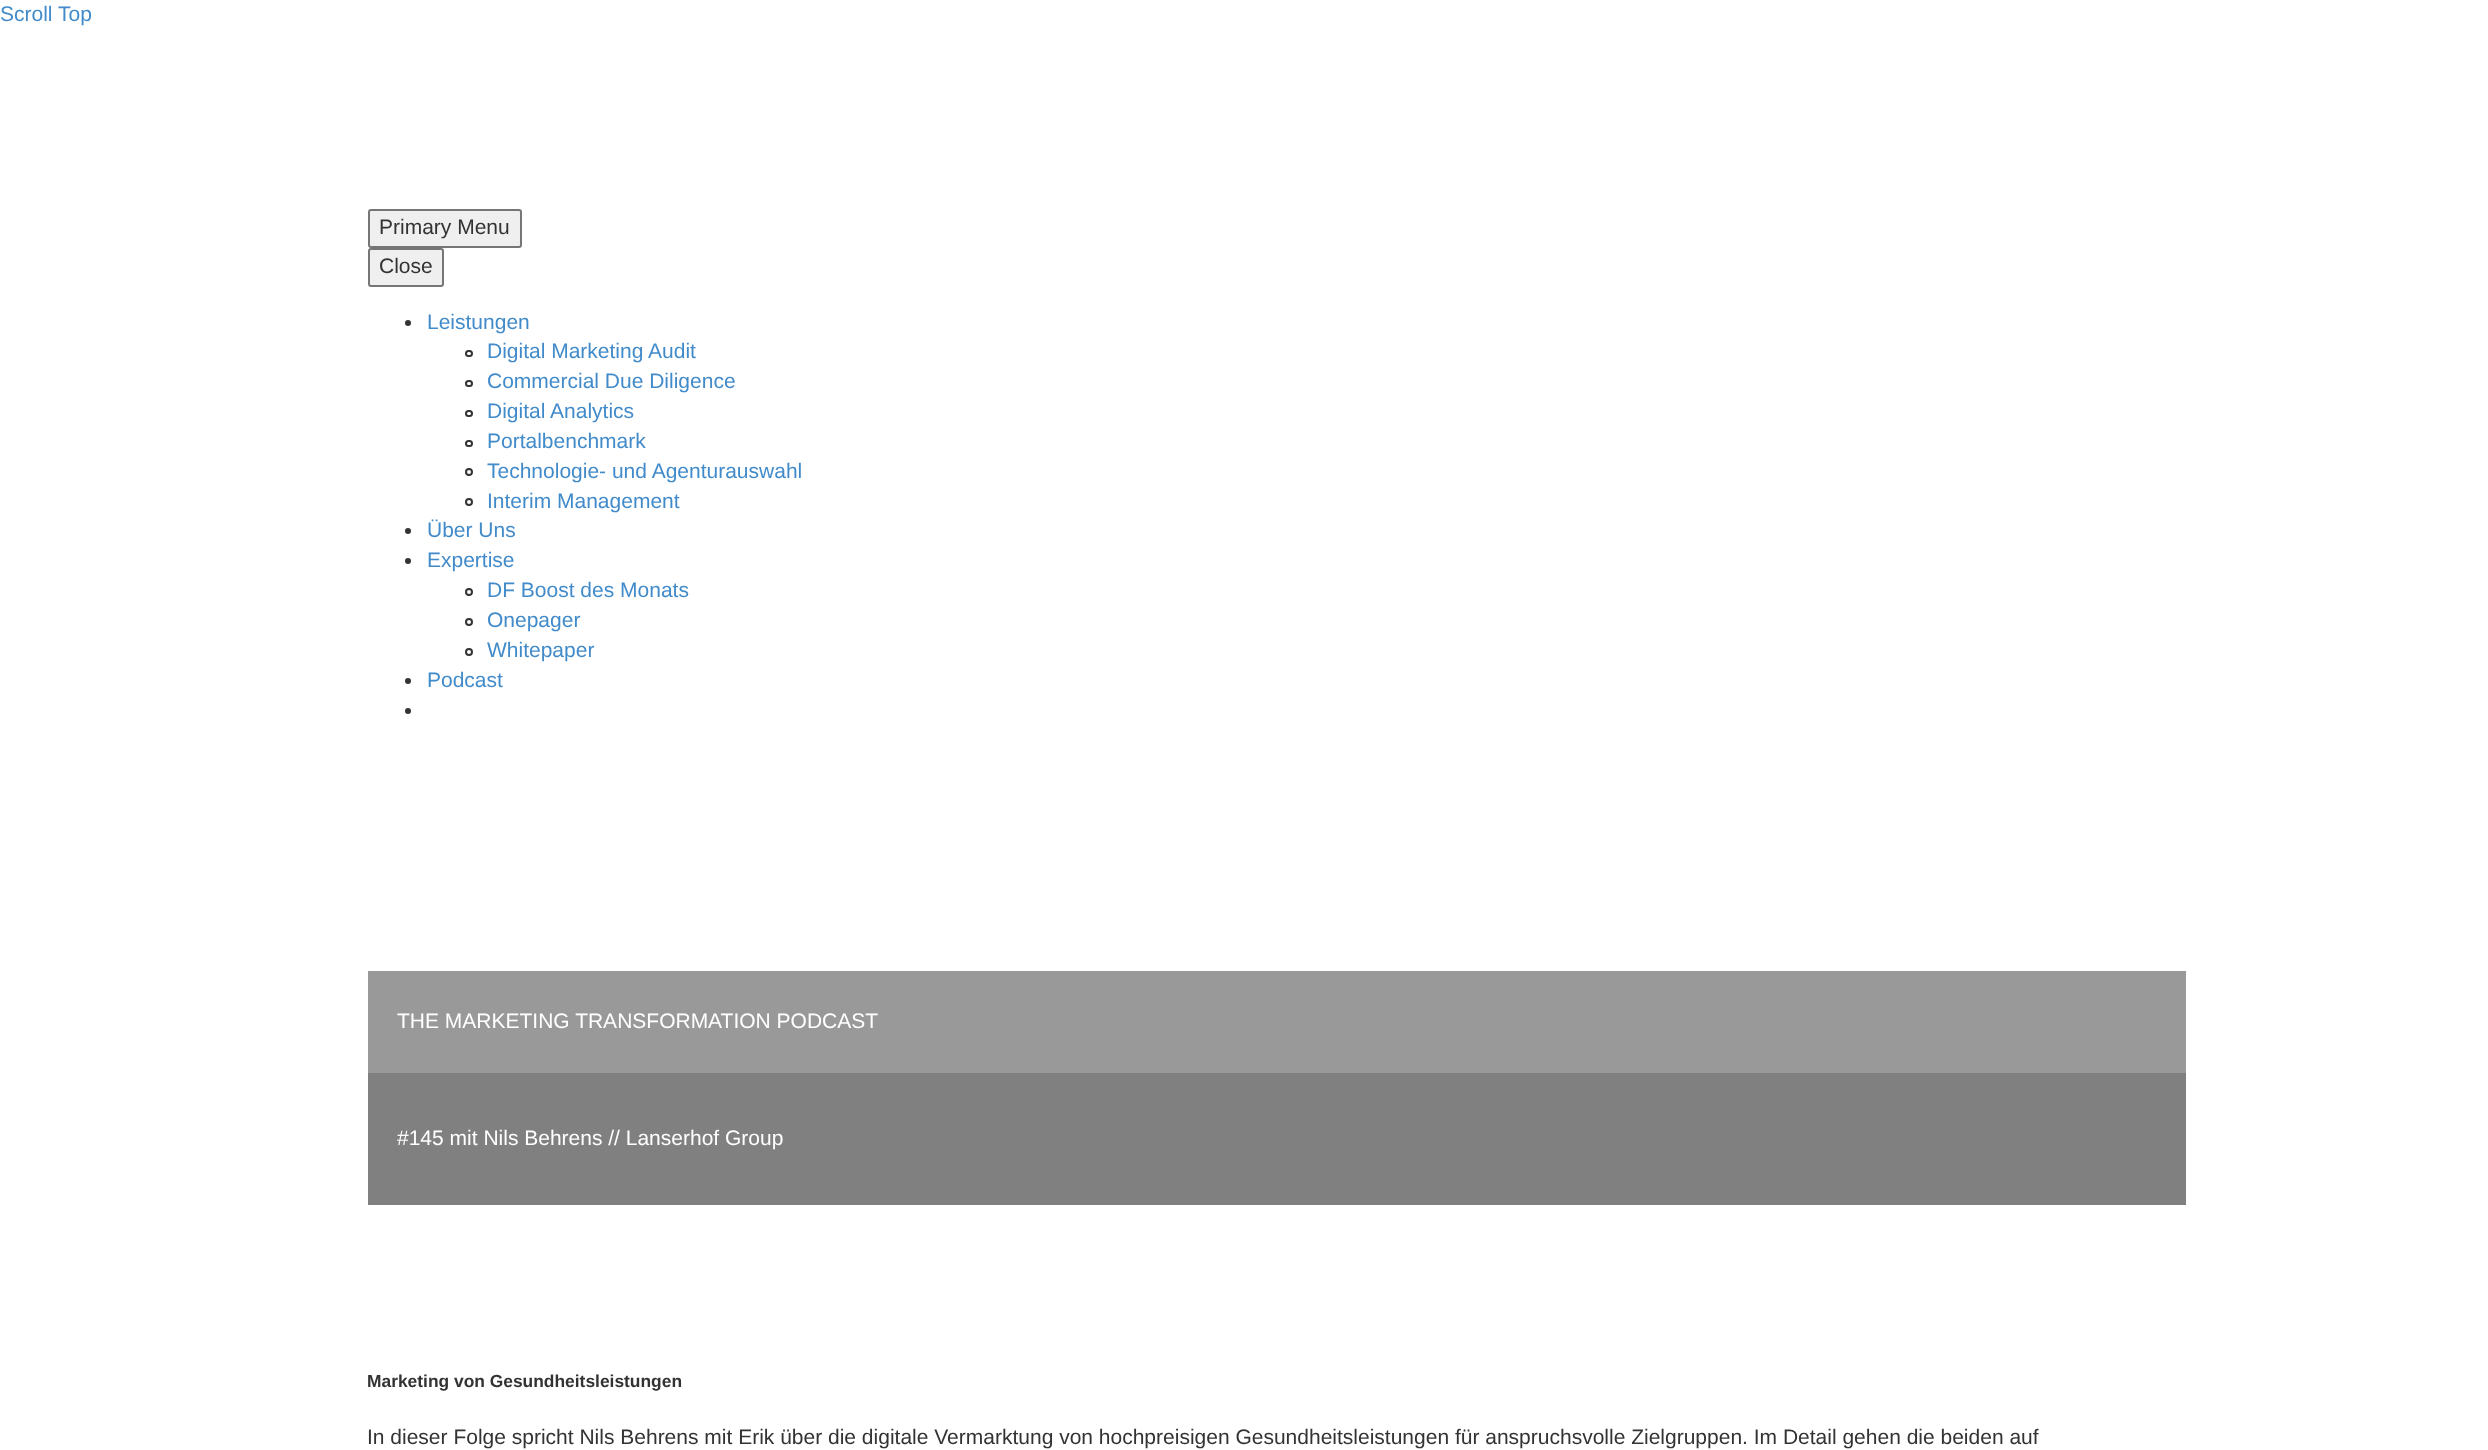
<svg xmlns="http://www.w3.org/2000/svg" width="2488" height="1450">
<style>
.a{font:21px Liberation Sans;fill:#428bca}
.b{font:21px Liberation Sans;fill:#333}
.c{font:21px Liberation Sans;fill:#fff}
.d{font:bold 17.4px Liberation Sans;fill:#333}
</style>
<rect width="100%" height="100%" fill="#fff"/>
<rect fill="#efefef" stroke="#767676" stroke-width="2" x="369" y="210" width="152" height="37" rx="2"/>
<rect fill="#efefef" stroke="#767676" stroke-width="2" x="369" y="249" width="74" height="37" rx="2"/>
<circle fill="#333" cx="408" cy="323" r="3"/>
<rect fill="none" stroke="#333" stroke-width="2" x="466" y="351" width="6" height="5" rx="2.5"/>
<rect fill="none" stroke="#333" stroke-width="2" x="466" y="381" width="6" height="5" rx="2.5"/>
<rect fill="none" stroke="#333" stroke-width="2" x="466" y="411" width="6" height="5" rx="2.5"/>
<rect fill="none" stroke="#333" stroke-width="2" x="466" y="441" width="6" height="5" rx="2.5"/>
<circle fill="none" stroke="#333" stroke-width="2" cx="469" cy="472" r="3"/>
<circle fill="none" stroke="#333" stroke-width="2" cx="469" cy="502" r="3"/>
<circle fill="#333" cx="408" cy="531" r="3"/>
<circle fill="#333" cx="408" cy="561" r="3"/>
<circle fill="none" stroke="#333" stroke-width="2" cx="469" cy="592" r="3"/>
<circle fill="none" stroke="#333" stroke-width="2" cx="469" cy="622" r="3"/>
<circle fill="none" stroke="#333" stroke-width="2" cx="469" cy="652" r="3"/>
<circle fill="#333" cx="408" cy="681" r="3"/>
<circle fill="#333" cx="408" cy="711" r="3"/>
<path fill="#999" d="M368 971h1818v102H368z"/>
<path fill="#808080" d="M368 1073h1818v132H368z"/>
<text class="a" x="0" y="21">Scroll Top</text>
<text class="b" x="379" y="234">Primary Menu</text>
<text class="b" x="379" y="273">Close</text>
<text class="a" x="427" y="329">Leistungen</text>
<text class="a" x="487" y="358">Digital Marketing Audit</text>
<text class="a" x="487" y="388">Commercial Due Diligence</text>
<text class="a" x="487" y="418">Digital Analytics</text>
<text class="a" x="487" y="448">Portalbenchmark</text>
<text class="a" x="487" y="478">Technologie- und Agenturauswahl</text>
<text class="a" x="487" y="508">Interim Management</text>
<text class="a" x="427" y="537">Über Uns</text>
<text class="a" x="427" y="567">Expertise</text>
<text class="a" x="487" y="597">DF Boost des Monats</text>
<text class="a" x="487" y="627">Onepager</text>
<text class="a" x="487" y="657">Whitepaper</text>
<text class="a" x="427" y="687">Podcast</text>
<text class="c" x="397" y="1028">THE MARKETING TRANSFORMATION PODCAST</text>
<text class="c" x="397" y="1145">#145 mit Nils Behrens // Lanserhof Group</text>
<text class="d" x="367" y="1387">Marketing von Gesundheitsleistungen</text>
<text class="b" x="367" y="1444">In dieser Folge spricht Nils Behrens mit Erik über die digitale Vermarktung von hochpreisigen Gesundheitsleistungen für anspruchsvolle Zielgruppen. Im Detail gehen die beiden auf</text>
</svg>
